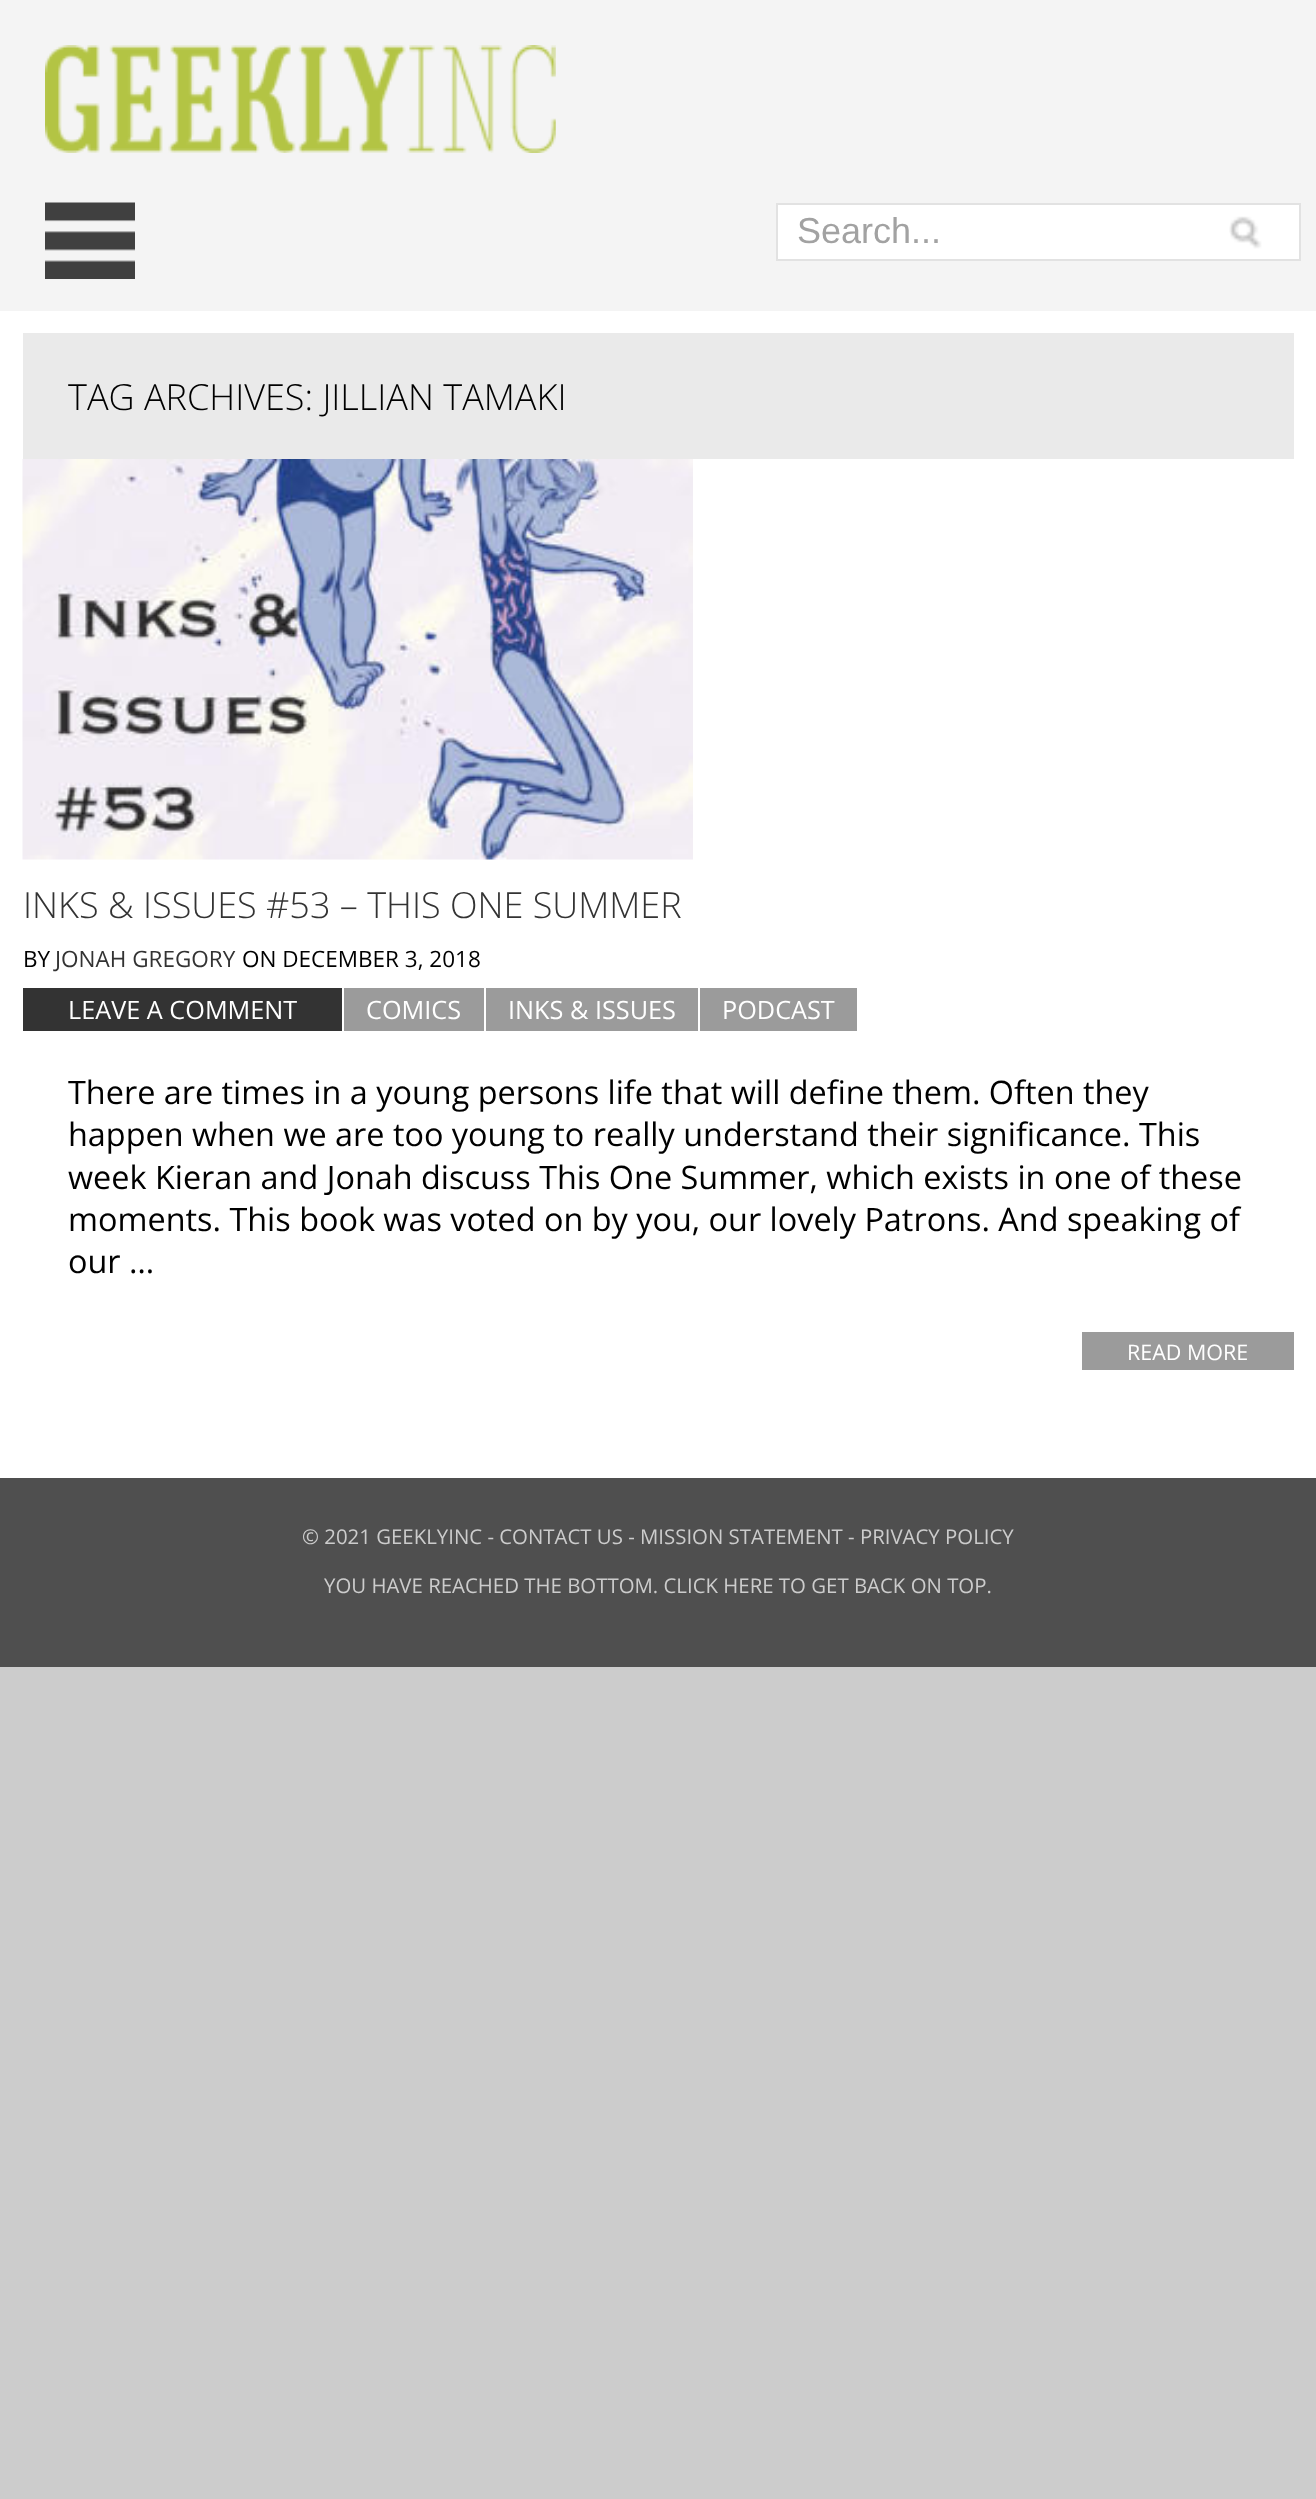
<svg xmlns="http://www.w3.org/2000/svg" width="1316" height="2499">
<style>
.a{font:36px Liberation Sans;fill:#a2a2a2}
.b{font:300 36px Open Sans;fill:#000}
.c{font:300 36px Open Sans;fill:#333}
.d{font:22.5px Open Sans;fill:#000}
.e{font:22.5px Open Sans;fill:#333}
.f{font:25.25px Open Sans;fill:#fff}
.g{font:32.4px Open Sans;fill:#000}
.h{font:21.5px Open Sans;fill:#fff}
.i{font:20.4px Open Sans;fill:#ccc}
</style>
<rect width="100%" height="100%" fill="#ccc"/>
<path fill="#fff" d="M0 311h1316v1167H0z"/>
<path fill="#f4f4f4" d="M0 0h1316v311H0z"/>
<image href="1.png" x="45" y="45" width="511" height="108"/>
<image href="2.png" x="45" y="202" width="90" height="77"/>
<path fill="#fff" stroke="#e2e2e2" stroke-width="2" d="M777 204h523v56H777z"/>
<image href="3.png" x="1229" y="216" width="33" height="33"/>
<path fill="#eaeaea" d="M23 333h1271v126H23z"/>
<image href="4.png" x="22" y="459" width="671" height="401"/>
<path fill="#333" d="M23 988h319v43H23z"/>
<path fill="#9b9b9b" d="M344 988h140v43H344z"/>
<path fill="#9b9b9b" d="M486 988h212v43H486z"/>
<path fill="#9b9b9b" d="M700 988h157v43H700z"/>
<path fill="#9b9b9b" d="M1082 1332h212v38H1082z"/>
<path fill="#4f4f4f" d="M0 1478h1316v189H0z"/>
<text class="a" x="797" y="243">Search...</text>
<text class="b" x="68" y="410">TAG ARCHIVES: JILLIAN TAMAKI</text>
<text class="c" x="23" y="918">INKS &amp; ISSUES #53 – THIS ONE SUMMER</text>
<text class="d" x="23" y="967">BY</text>
<text class="e" x="55" y="967">JONAH GREGORY</text>
<text class="d" x="242" y="967">ON DECEMBER 3, 2018</text>
<text class="f" x="68" y="1019">LEAVE A COMMENT</text>
<text class="f" x="366" y="1019">COMICS</text>
<text class="f" x="508" y="1019">INKS &amp; ISSUES</text>
<text class="f" x="722" y="1019">PODCAST</text>
<text class="g" x="68" y="1104">There are times in a young persons life that will define them. Often they</text>
<text class="g" x="68" y="1146">happen when we are too young to really understand their significance. This</text>
<text class="g" x="68" y="1189">week Kieran and Jonah discuss This One Summer, which exists in one of these</text>
<text class="g" x="68" y="1231">moments. This book was voted on by you, our lovely Patrons. And speaking of</text>
<text class="g" x="68" y="1273">our …</text>
<text class="h" x="1127" y="1360">READ MORE</text>
<text class="i" x="302" y="1544">© 2021 GEEKLYINC - CONTACT US - MISSION STATEMENT - PRIVACY POLICY</text>
<text class="i" x="324" y="1593">YOU HAVE REACHED THE BOTTOM. CLICK HERE TO GET BACK ON TOP.</text>
</svg>
